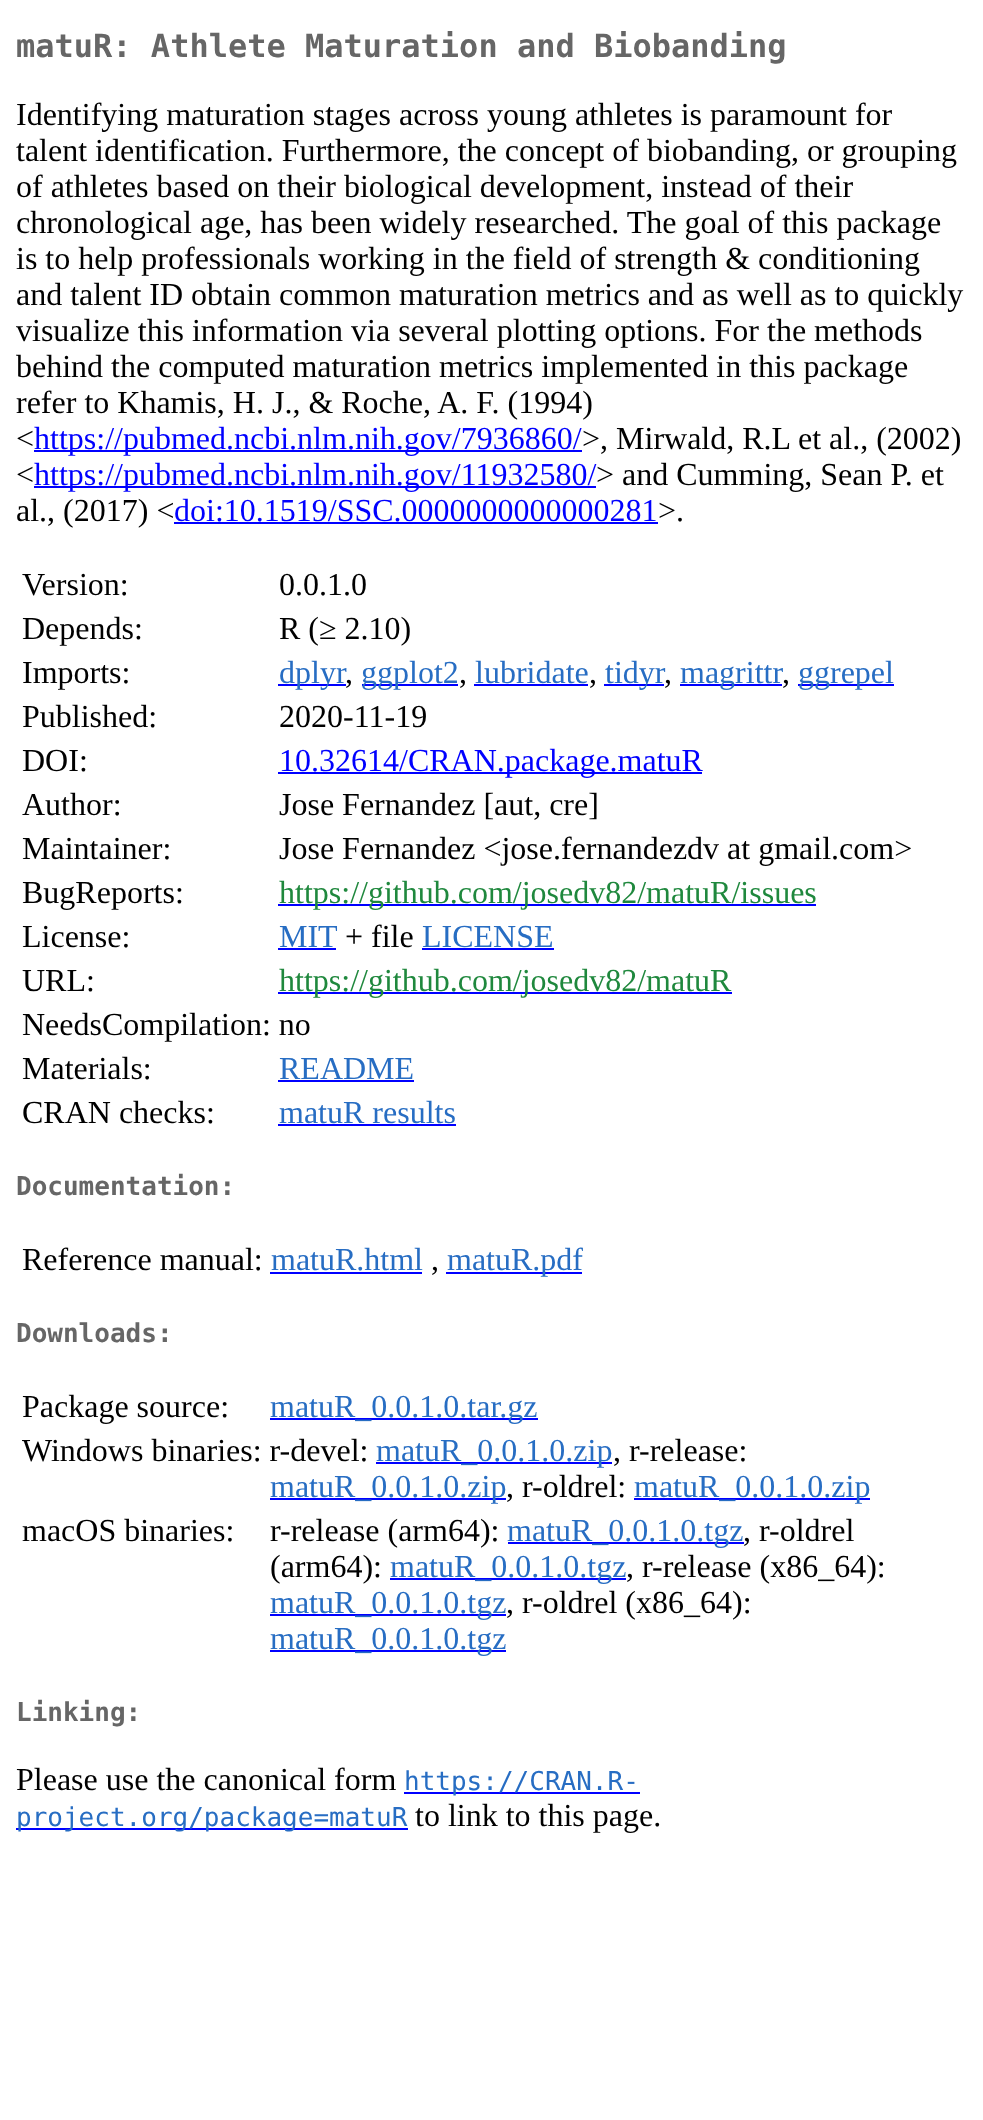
<svg xmlns="http://www.w3.org/2000/svg" width="983" height="2120">
<style>
.a{font:bold 32px DejaVu Sans Mono;fill:#666}
.b{font:32px Liberation Serif;fill:#000}
.c{font:32px Liberation Serif;fill:#00f}
.d{font:32px Liberation Serif;fill:#276dc3}
.e{font:32px Liberation Serif;fill:#1f883d}
.f{font:bold 26px DejaVu Sans Mono;fill:#666}
.g{font:26px DejaVu Sans Mono;fill:#276dc3}
</style>
<rect width="100%" height="100%" fill="#fff"/>
<path fill="#00f" d="M34 450h548v2H34z"/>
<path fill="#00f" d="M34 486h562v2H34z"/>
<path fill="#00f" d="M174 522h484v2H174z"/>
<path fill="#00f" d="M278 684h68v2H278z"/>
<path fill="#00f" d="M362 684h96v2H362z"/>
<path fill="#00f" d="M474 684h114v2H474z"/>
<path fill="#00f" d="M604 684h60v2H604z"/>
<path fill="#00f" d="M680 684h102v2H680z"/>
<path fill="#00f" d="M798 684h96v2H798z"/>
<path fill="#00f" d="M278 772h424v2H278z"/>
<path fill="#00f" d="M278 904h538v2H278z"/>
<path fill="#00f" d="M278 948h58v2H278z"/>
<path fill="#00f" d="M422 948h132v2H422z"/>
<path fill="#00f" d="M278 992h454v2H278z"/>
<path fill="#00f" d="M278 1080h136v2H278z"/>
<path fill="#00f" d="M278 1124h178v2H278z"/>
<path fill="#00f" d="M270 1272h152v2H270z"/>
<path fill="#00f" d="M446 1272h136v2H446z"/>
<path fill="#00f" d="M270 1418h268v2H270z"/>
<path fill="#00f" d="M376 1462h236v2H376z"/>
<path fill="#00f" d="M270 1498h236v2H270z"/>
<path fill="#00f" d="M634 1498h236v2H634z"/>
<path fill="#00f" d="M508 1542h236v2H508z"/>
<path fill="#00f" d="M390 1578h236v2H390z"/>
<path fill="#00f" d="M270 1614h236v2H270z"/>
<path fill="#00f" d="M270 1650h236v2H270z"/>
<path fill="#00f" d="M404 1792h236v2H404z"/>
<path fill="#00f" d="M16 1828h392v2H16z"/>
<text class="a" x="16" y="57">matuR: Athlete Maturation and Biobanding</text>
<text class="b" x="16" y="125">Identifying maturation stages across young athletes is paramount for</text>
<text class="b" x="16" y="161">talent identification. Furthermore, the concept of biobanding, or grouping</text>
<text class="b" x="16" y="197">of athletes based on their biological development, instead of their</text>
<text class="b" x="16" y="233">chronological age, has been widely researched. The goal of this package</text>
<text class="b" x="16" y="269">is to help professionals working in the field of strength &amp; conditioning</text>
<text class="b" x="16" y="305">and talent ID obtain common maturation metrics and as well as to quickly</text>
<text class="b" x="16" y="341">visualize this information via several plotting options. For the methods</text>
<text class="b" x="16" y="377">behind the computed maturation metrics implemented in this package</text>
<text class="b" x="16" y="413">refer to Khamis, H. J., &amp; Roche, A. F. (1994)</text>
<text class="b" x="16" y="449">&lt;</text>
<text class="c" x="34" y="449">https://pubmed.ncbi.nlm.nih.gov/7936860/</text>
<text class="b" x="582" y="449">&gt;, Mirwald, R.L et al., (2002)</text>
<text class="b" x="16" y="485">&lt;</text>
<text class="c" x="34" y="485">https://pubmed.ncbi.nlm.nih.gov/11932580/</text>
<text class="b" x="596" y="485">&gt; and Cumming, Sean P. et</text>
<text class="b" x="16" y="521">al., (2017) &lt;</text>
<text class="c" x="174" y="521">doi:10.1519/SSC.0000000000000281</text>
<text class="b" x="658" y="521">&gt;.</text>
<text class="b" x="22" y="595">Version:</text>
<text class="b" x="279" y="595">0.0.1.0</text>
<text class="b" x="22" y="639">Depends:</text>
<text class="b" x="279" y="639">R (≥ 2.10)</text>
<text class="b" x="22" y="683">Imports:</text>
<text class="d" x="279" y="683">dplyr</text>
<text class="b" x="345" y="683">,</text>
<text class="d" x="361" y="683">ggplot2</text>
<text class="b" x="459" y="683">,</text>
<text class="d" x="475" y="683">lubridate</text>
<text class="b" x="589" y="683">,</text>
<text class="d" x="605" y="683">tidyr</text>
<text class="b" x="664" y="683">,</text>
<text class="d" x="680" y="683">magrittr</text>
<text class="b" x="782" y="683">,</text>
<text class="d" x="798" y="683">ggrepel</text>
<text class="b" x="22" y="727">Published:</text>
<text class="b" x="279" y="727">2020-11-19</text>
<text class="b" x="22" y="771">DOI:</text>
<text class="c" x="279" y="771">10.32614/CRAN.package.matuR</text>
<text class="b" x="22" y="815">Author:</text>
<text class="b" x="279" y="815">Jose Fernandez [aut, cre]</text>
<text class="b" x="22" y="859">Maintainer:</text>
<text class="b" x="279" y="859">Jose Fernandez &lt;jose.fernandezdv at gmail.com&gt;</text>
<text class="b" x="22" y="903">BugReports:</text>
<text class="e" x="279" y="903">https://github.com/josedv82/matuR/issues</text>
<text class="b" x="22" y="947">License:</text>
<text class="d" x="279" y="947">MIT</text>
<text class="b" x="345" y="947">+ file</text>
<text class="d" x="422" y="947">LICENSE</text>
<text class="b" x="22" y="991">URL:</text>
<text class="e" x="279" y="991">https://github.com/josedv82/matuR</text>
<text class="b" x="22" y="1035">NeedsCompilation: no</text>
<text class="b" x="22" y="1079">Materials:</text>
<text class="d" x="279" y="1079">README</text>
<text class="b" x="22" y="1123">CRAN checks:</text>
<text class="d" x="279" y="1123">matuR results</text>
<text class="f" x="16" y="1195">Documentation:</text>
<text class="b" x="22" y="1270">Reference manual:</text>
<text class="d" x="271" y="1270">matuR.html</text>
<text class="b" x="431" y="1270">,</text>
<text class="d" x="447" y="1270">matuR.pdf</text>
<text class="f" x="16" y="1342">Downloads:</text>
<text class="b" x="22" y="1417">Package source:</text>
<text class="d" x="270" y="1417">matuR_0.0.1.0.tar.gz</text>
<text class="b" x="22" y="1461">Windows binaries: r-devel:</text>
<text class="d" x="376" y="1461">matuR_0.0.1.0.zip</text>
<text class="b" x="613" y="1461">, r-release:</text>
<text class="d" x="270" y="1497">matuR_0.0.1.0.zip</text>
<text class="b" x="506" y="1497">, r-oldrel:</text>
<text class="d" x="634" y="1497">matuR_0.0.1.0.zip</text>
<text class="b" x="22" y="1541">macOS binaries:</text>
<text class="b" x="270" y="1541">r-release (arm64):</text>
<text class="d" x="507" y="1541">matuR_0.0.1.0.tgz</text>
<text class="b" x="743" y="1541">, r-oldrel</text>
<text class="b" x="270" y="1577">(arm64):</text>
<text class="d" x="390" y="1577">matuR_0.0.1.0.tgz</text>
<text class="b" x="626" y="1577">, r-release (x86_64):</text>
<text class="d" x="270" y="1613">matuR_0.0.1.0.tgz</text>
<text class="b" x="506" y="1613">, r-oldrel (x86_64):</text>
<text class="d" x="270" y="1649">matuR_0.0.1.0.tgz</text>
<text class="f" x="16" y="1721">Linking:</text>
<text class="b" x="16" y="1790">Please use the canonical form</text>
<text class="g" x="404" y="1790">https://CRAN.R-</text>
<text class="g" x="16" y="1826">project.org/package=matuR</text>
<text class="b" x="415" y="1826">to link to this page.</text>
</svg>
